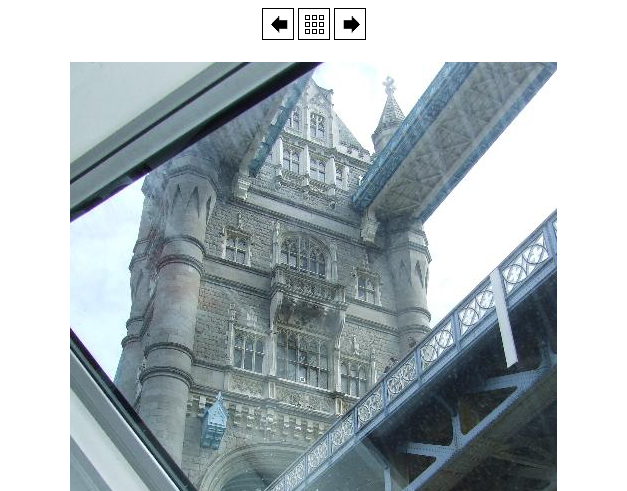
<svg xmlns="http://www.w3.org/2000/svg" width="627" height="491">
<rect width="100%" height="100%" fill="#fff"/>
<image href="1.png" x="262" y="8" width="32" height="32"/>
<image href="2.png" x="298" y="8" width="32" height="32"/>
<image href="3.png" x="334" y="8" width="32" height="32"/>
<image href="4.png" x="70" y="62" width="487" height="429"/>
</svg>
